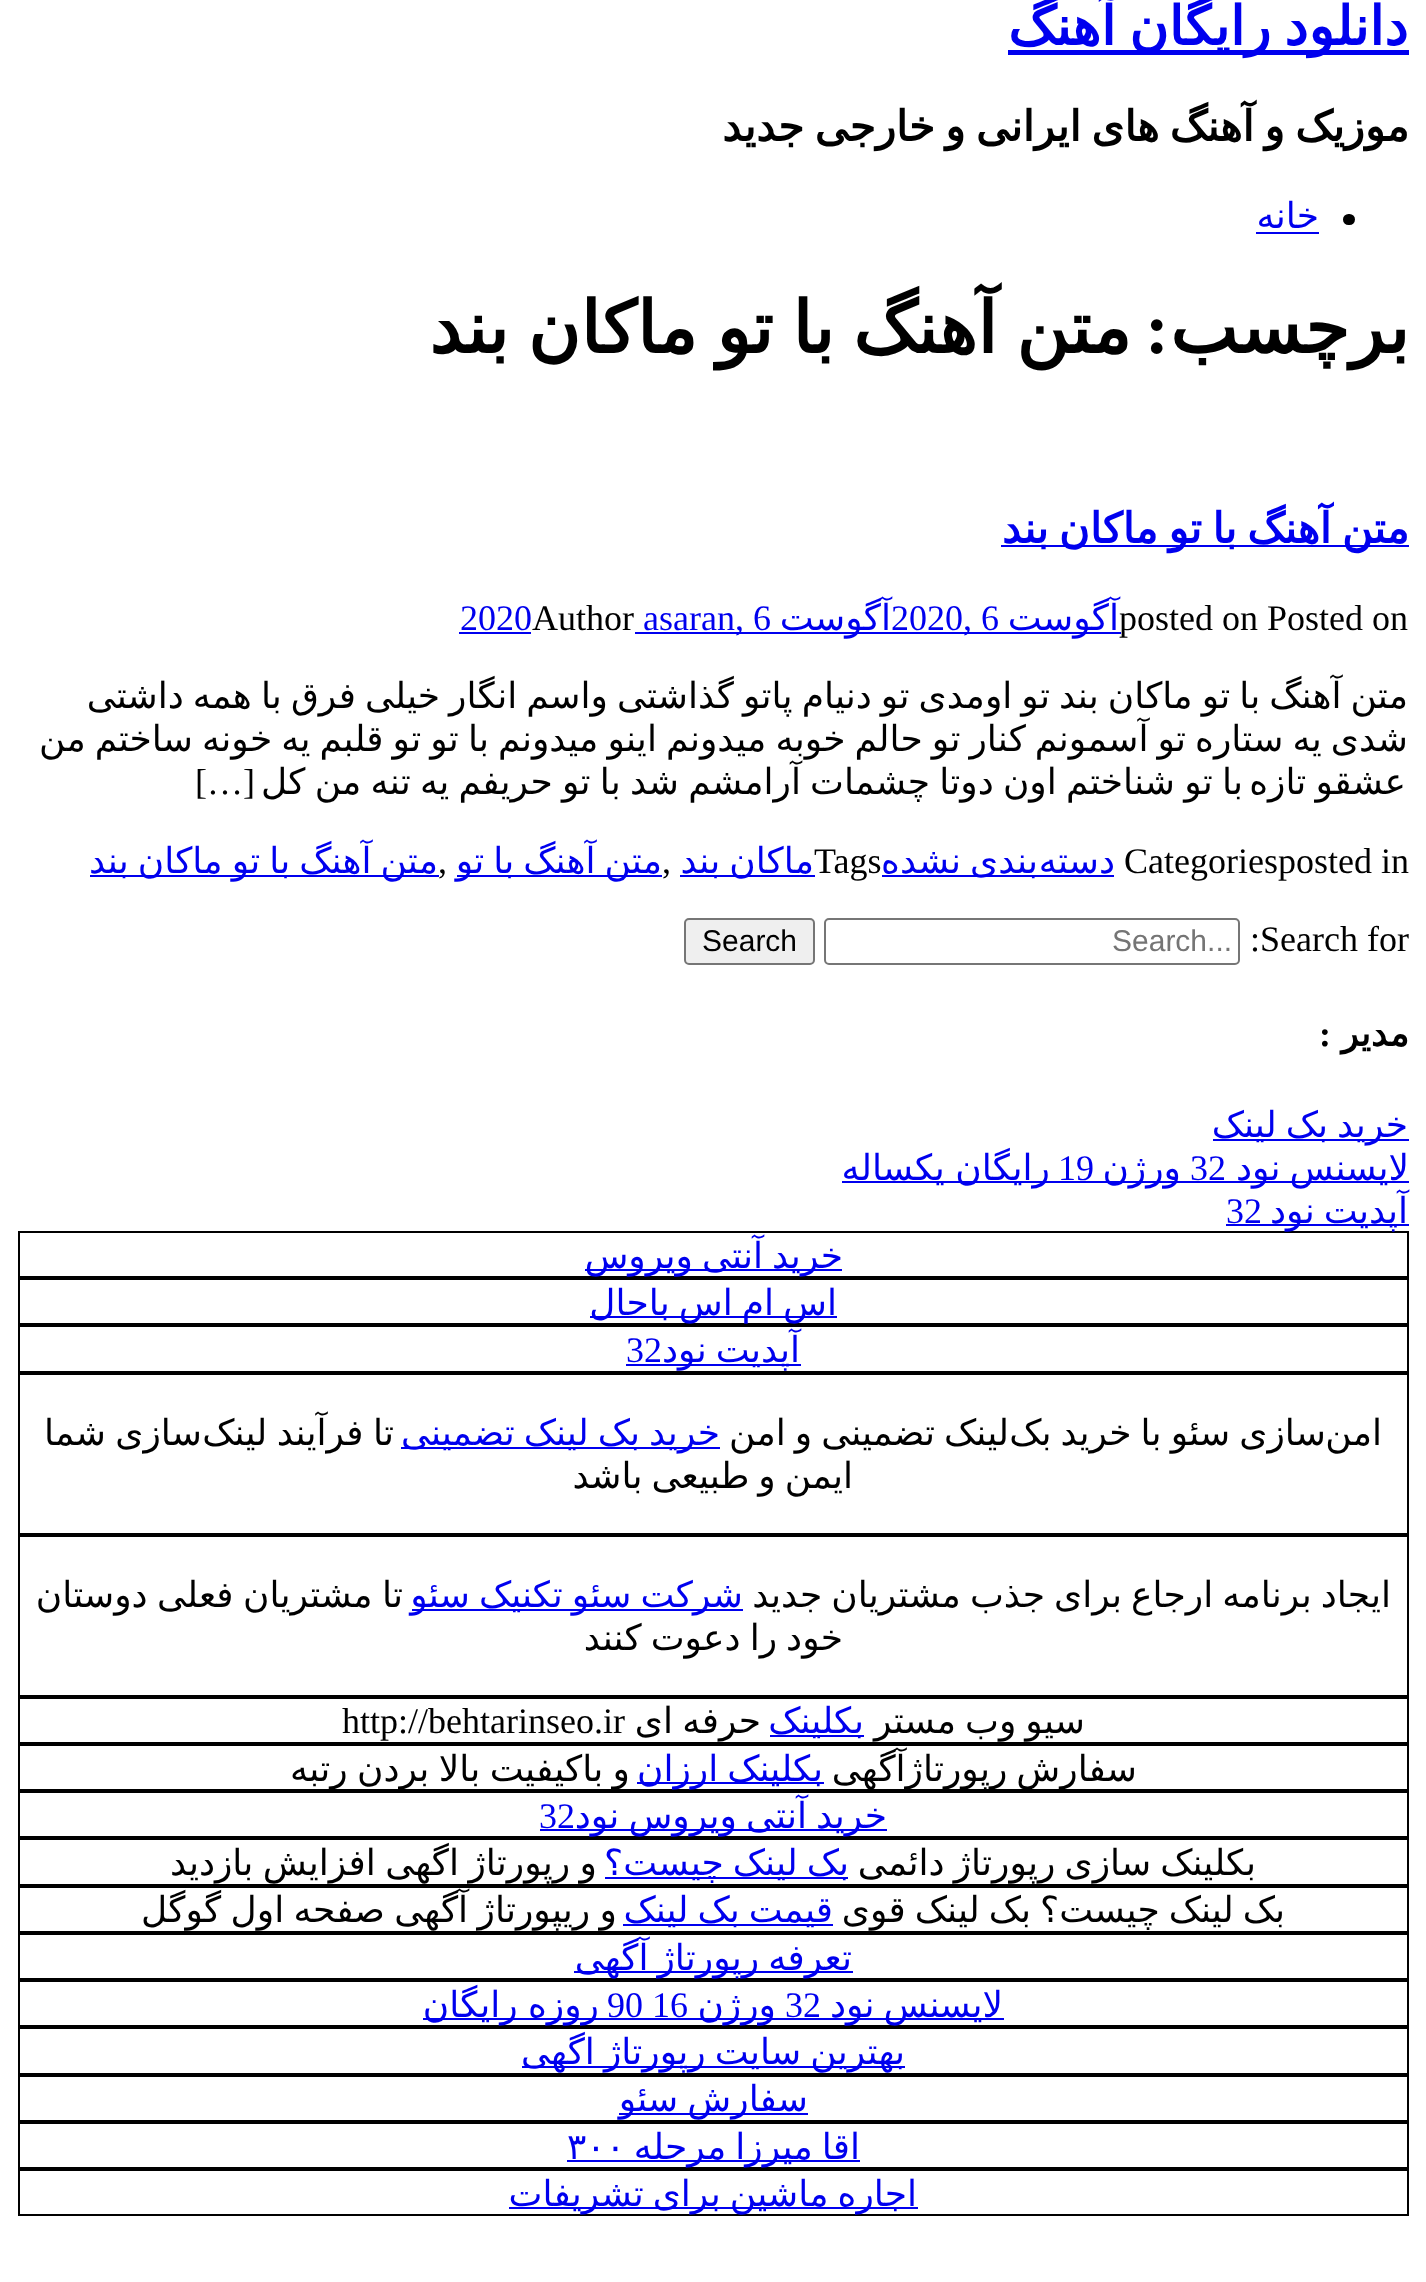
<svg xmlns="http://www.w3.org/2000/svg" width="1426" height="2282">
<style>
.a{font:bold 54px DejaVu Sans;direction:rtl;fill:#00e}
.b{font:bold 42.1px DejaVu Sans;direction:rtl;fill:#000}
.c{font:36px DejaVu Sans;direction:rtl;fill:#00e}
.d{font:bold 72px DejaVu Sans;direction:rtl;fill:#000}
.e{font:bold 72px Liberation Serif;direction:rtl;fill:#000}
.f{font:bold 42.1px DejaVu Sans;direction:rtl;fill:#00e}
.g{font:36px Liberation Serif;fill:#000}
.h{font:36px Liberation Serif;fill:#00e}
.i{font:36px DejaVu Sans;direction:rtl;fill:#000}
.j{font:36px Liberation Serif;direction:rtl;fill:#000}
.k{font:30px Liberation Sans;fill:#757575}
.l{font:30px Liberation Sans;fill:#000}
.m{font:bold 36px DejaVu Sans;direction:rtl;fill:#000}
.n{font:bold 36px Liberation Serif;direction:rtl;fill:#000}
.o{font:36px DejaVu Sans;fill:#00e}
</style>
<rect width="100%" height="100%" fill="#fff"/>
<path fill="#00e" d="M1008 50h401v5H1008z"/>
<rect fill="#000" x="1343" y="214" width="12" height="11" rx="5.5"/>
<path fill="#00e" d="M1256 232h63v2H1256z"/>
<path fill="#00e" d="M1001 545h408v2H1001z"/>
<path fill="#00e" d="M635 632h256v2H635z"/>
<path fill="#00e" d="M459 632h72v2H459z"/>
<path fill="#00e" d="M882 875h232v2H882z"/>
<path fill="#00e" d="M457 875h205v2H457z"/>
<path fill="#00e" d="M90 875h349v2H90z"/>
<rect fill="none" stroke="#767676" stroke-width="2" x="825" y="919" width="414" height="45" rx="4"/>
<rect fill="#efefef" stroke="#767676" stroke-width="2" x="685" y="919" width="129" height="45" rx="4"/>
<path fill="#00e" d="M1213 1139h196v2H1213z"/>
<path fill="#00e" d="M842 1181h567v2H842z"/>
<path fill="#00e" d="M1226 1224h183v2H1226z"/>
<path fill="none" stroke="#000" stroke-width="2" d="M19 1232h1389v45H19z"/>
<path fill="#00e" d="M585 1269h257v2H585z"/>
<path fill="none" stroke="#000" stroke-width="2" d="M19 1279h1389v45H19z"/>
<path fill="#00e" d="M590 1316h247v2H590z"/>
<path fill="none" stroke="#000" stroke-width="2" d="M19 1326h1389v46H19z"/>
<path fill="#00e" d="M626 1364h175v2H626z"/>
<path fill="none" stroke="#000" stroke-width="2" d="M19 1374h1389v160H19z"/>
<path fill="#00e" d="M401 1447h319v2H401z"/>
<path fill="none" stroke="#000" stroke-width="2" d="M19 1536h1389v160H19z"/>
<path fill="#00e" d="M412 1609h331v2H412z"/>
<path fill="none" stroke="#000" stroke-width="2" d="M19 1698h1389v45H19z"/>
<path fill="#00e" d="M770 1735h94v2H770z"/>
<path fill="none" stroke="#000" stroke-width="2" d="M19 1745h1389v45H19z"/>
<path fill="#00e" d="M637 1782h187v2H637z"/>
<path fill="none" stroke="#000" stroke-width="2" d="M19 1792h1389v45H19z"/>
<path fill="#00e" d="M540 1829h347v2H540z"/>
<path fill="none" stroke="#000" stroke-width="2" d="M19 1839h1389v46H19z"/>
<path fill="#00e" d="M605 1877h243v2H605z"/>
<path fill="none" stroke="#000" stroke-width="2" d="M19 1887h1389v45H19z"/>
<path fill="#00e" d="M623 1924h210v2H623z"/>
<path fill="none" stroke="#000" stroke-width="2" d="M19 1934h1389v45H19z"/>
<path fill="#00e" d="M574 1971h279v2H574z"/>
<path fill="none" stroke="#000" stroke-width="2" d="M19 1981h1389v45H19z"/>
<path fill="#00e" d="M423 2018h581v2H423z"/>
<path fill="none" stroke="#000" stroke-width="2" d="M19 2028h1389v46H19z"/>
<path fill="#00e" d="M522 2066h383v2H522z"/>
<path fill="none" stroke="#000" stroke-width="2" d="M19 2076h1389v45H19z"/>
<path fill="#00e" d="M619 2113h189v2H619z"/>
<path fill="none" stroke="#000" stroke-width="2" d="M19 2123h1389v45H19z"/>
<path fill="#00e" d="M567 2160h293v2H567z"/>
<path fill="none" stroke="#000" stroke-width="2" d="M19 2170h1389v45H19z"/>
<path fill="#00e" d="M509 2207h409v2H509z"/>
<text class="a" x="1408" y="45" word-spacing="-4">دانلود رایگان آهنگ</text>
<text class="b" x="1409" y="141" word-spacing="-3">موزیک و آهنگ های ایرانی و خارجی جدید</text>
<text class="c" x="1319" y="228">خانه</text>
<text class="d" x="1409" y="353">برچسب</text>
<text class="e" x="1169" y="353">:</text>
<text class="d" x="1131" y="353" word-spacing="-4">متن آهنگ با تو ماکان بند</text>
<text class="f" x="1409" y="543" word-spacing="-3">متن آهنگ با تو ماکان بند</text>
<text class="g" x="1119" y="630">posted on Posted on</text>
<path fill="#00e" d="M891 632h230v2H891z"/>
<text class="c" x="1119" y="630">آگوست</text>
<text class="h" x="891" y="630">2020, 6</text>
<text class="c" x="891" y="630">آگوست</text>
<text class="h" x="735" y="630">, 6</text>
<text class="h" x="643" y="630">asaran</text>
<text class="g" x="532" y="630">Author</text>
<text class="h" x="460" y="630">2020</text>
<text class="i" x="1408" y="708" word-spacing="-2.4">متن آهنگ با تو ماکان بند تو اومدی تو دنیام پاتو گذاشتی واسم انگار خیلی فرق با همه داشتی</text>
<text class="i" x="1408" y="751" word-spacing="-2.4">شدی یه ستاره تو آسمونم کنار تو حالم خوبه میدونم اینو میدونم با تو تو قلبم یه خونه ساختم من</text>
<text class="i" x="1243" y="794" word-spacing="-2.25">با تو شناختم اون دوتا چشمات آرامشم شد با تو حریفم یه تنه من کل</text>
<text class="i" x="1406" y="794" word-spacing="-2.25">عشقو تازه</text>
<text class="j" x="255" y="794">[…]</text>
<text class="g" x="1124" y="873">Categoriesposted in</text>
<text class="c" x="1115" y="873">دسته</text>
<text class="c" x="1038" y="873" word-spacing="-2.4">بندی نشده</text>
<text class="g" x="814" y="873">Tags</text>
<text class="g" x="662" y="873">,</text>
<text class="c" x="662" y="873" word-spacing="-2.4">متن آهنگ با تو</text>
<path fill="#00e" d="M680 875h135v2H680z"/>
<text class="c" x="814" y="873" word-spacing="-2.4">ماکان بند</text>
<text class="g" x="438" y="873">,</text>
<text class="c" x="438" y="873" word-spacing="-2.4">متن آهنگ با تو ماکان بند</text>
<text class="g" x="1250" y="951">:Search for</text>
<text class="k" x="1112" y="951">Search...</text>
<text class="l" x="702" y="951">Search</text>
<text class="m" x="1409" y="1046">مدیر</text>
<text class="n" x="1331" y="1046">:</text>
<text class="c" x="1408" y="1137" word-spacing="-2.4">خرید بک لینک</text>
<text class="c" x="1409" y="1180" word-spacing="-2.4">لایسنس نود</text>
<text class="h" x="1190" y="1180">32</text>
<text class="c" x="1181" y="1180">ورژن</text>
<text class="h" x="1058" y="1180">19</text>
<text class="c" x="1050" y="1180" word-spacing="-1">رایگان یکساله</text>
<text class="c" x="1408" y="1223" word-spacing="-2.4">آپدیت نود</text>
<text class="h" x="1226" y="1223">32</text>
<text class="c" x="843" y="1268" word-spacing="-2.4">خرید آنتی ویروس</text>
<text class="c" x="837" y="1315" word-spacing="-2.4">اس ام اس باحال</text>
<text class="c" x="800" y="1362" word-spacing="-2.4">آپدیت نود</text>
<text class="h" x="626" y="1362">32</text>
<text class="i" x="1009" y="1445" word-spacing="-2.4">لینک تضمینی و امن</text>
<text class="i" x="1326" y="1445" word-spacing="-2.4">سازی سئو با خرید بک</text>
<text class="i" x="1382" y="1445">امن</text>
<text class="c" x="720" y="1445" word-spacing="-2.4">خرید بک لینک تضمینی</text>
<text class="i" x="394" y="1445" word-spacing="-2">تا فرآیند لینک</text>
<text class="i" x="202" y="1445" word-spacing="-2">سازی شما</text>
<text class="i" x="853" y="1488" word-spacing="-2.4">ایمن و طبیعی باشد</text>
<text class="i" x="1391" y="1607" word-spacing="-2.4">ایجاد برنامه ارجاع برای جذب مشتریان جدید</text>
<text class="c" x="743" y="1607" word-spacing="-2.4">شرکت سئو تکنیک سئو</text>
<text class="i" x="403" y="1607" word-spacing="-2">تا مشتریان فعلی دوستان</text>
<text class="i" x="843" y="1650" word-spacing="-2.4">خود را دعوت کنند</text>
<text class="i" x="1085" y="1733" word-spacing="-2.4">سیو وب مستر</text>
<text class="c" x="864" y="1733">بکلینک</text>
<text class="i" x="761" y="1733" word-spacing="-2">حرفه ای</text>
<text class="g" x="342" y="1733">http://behtarinseo.ir</text>
<text class="i" x="1137" y="1781" word-spacing="-2.4">سفارش رپورتاژآگهی</text>
<text class="c" x="823" y="1781" word-spacing="-2.4">بکلینک ارزان</text>
<text class="i" x="630" y="1781" word-spacing="-2">و باکیفیت بالا بردن رتبه</text>
<text class="c" x="887" y="1828" word-spacing="-2.4">خرید آنتی ویروس نود</text>
<text class="h" x="539" y="1828">32</text>
<text class="i" x="1256" y="1875" word-spacing="-2.4">بکلینک سازی رپورتاژ دائمی</text>
<text class="c" x="849" y="1875" word-spacing="-2.4">بک لینک چیست؟</text>
<text class="i" x="597" y="1875" word-spacing="-2">و رپورتاژ اگهی افزایش بازدید</text>
<text class="i" x="1285" y="1922" word-spacing="-2.4">بک لینک چیست؟ بک لینک قوی</text>
<text class="c" x="833" y="1922" word-spacing="-2.4">قیمت بک لینک</text>
<text class="i" x="617" y="1922" word-spacing="-2">و ریپورتاژ آگهی صفحه اول گوگل</text>
<text class="c" x="852" y="1970" word-spacing="-2.4">تعرفه رپورتاژ آگهی</text>
<text class="c" x="1003" y="2017" word-spacing="-2.4">لایسنس نود</text>
<text class="h" x="785" y="2017">32</text>
<text class="c" x="776" y="2017">ورژن</text>
<text class="h" x="607" y="2017">90 16</text>
<text class="c" x="599" y="2017" word-spacing="-1">روزه رایگان</text>
<text class="c" x="905" y="2064" word-spacing="-2.4">بهترین سایت رپورتاژ اگهی</text>
<text class="c" x="808" y="2111" word-spacing="-2.4">سفارش سئو</text>
<text class="c" x="860" y="2159" word-spacing="-2.4">اقا میرزا مرحله</text>
<text class="o" x="567" y="2159">۳۰۰</text>
<text class="c" x="917" y="2206" word-spacing="-2.4">اجاره ماشین برای تشریفات</text>
</svg>
